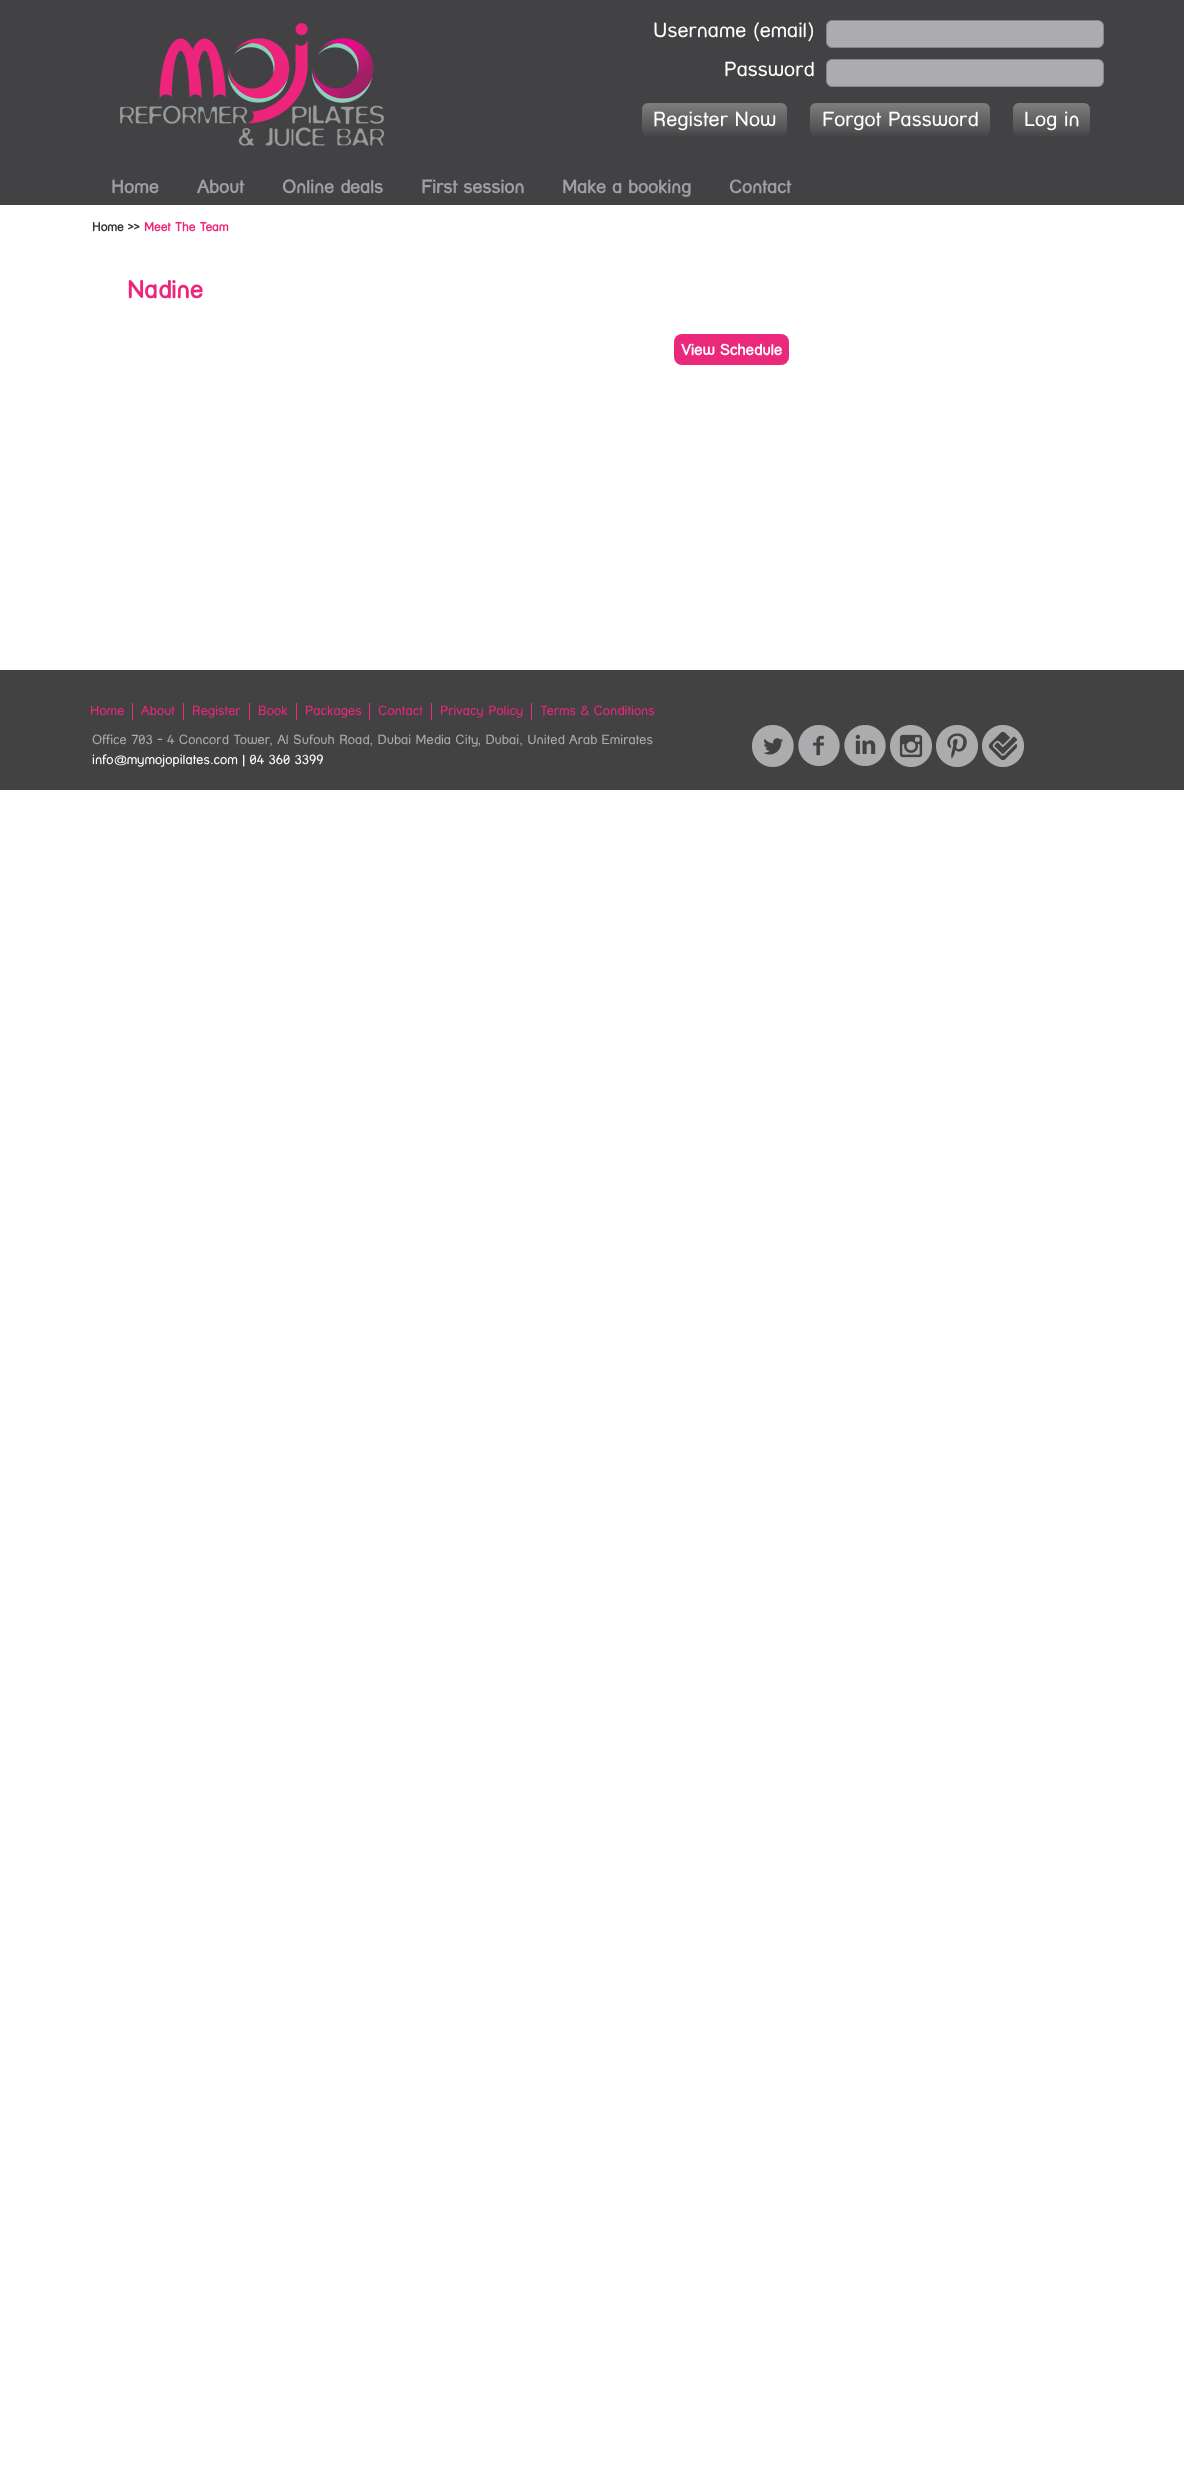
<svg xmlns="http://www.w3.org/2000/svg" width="1184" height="2489">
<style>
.a{font:20px 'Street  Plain';fill:#fff}
.b{font:bold 18px 'Street  Plain';fill:#9f9fa1}
.c{font:bold 12px 'Street  Plain';fill:#333}
.d{font:bold 12px 'Street  Plain';fill:#ec267d}
.e{font:bold 24px 'Street  Plain';fill:#ec267d}
.f{font:bold 15px 'Street  Plain';fill:#fff}
.g{font:13px 'Street  Plain';fill:#ec267d}
.h{font:13px 'Street  Plain';fill:#ababad}
.i{font:13px 'Street  Plain';fill:#fff}
</style>
<rect width="100%" height="100%" fill="#fff"/>
<path fill="#424244" d="M0 0h1184v205H0z"/>
<image href="1.png" x="120" y="23" width="264" height="123"/>
<rect fill="#acacae" stroke="#868686" x="826.5" y="20.5" width="277" height="27" rx="5.5"/>
<rect fill="#acacae" stroke="#868686" x="826.5" y="59.5" width="277" height="27" rx="5.5"/>
<rect fill="#4a484a" x="642" y="103" width="145" height="33" rx="6"/>
<image href="2.png" x="642" y="103" width="145" height="30"/>
<rect fill="#4a484a" x="810" y="103" width="180" height="33" rx="6"/>
<image href="3.png" x="810" y="103" width="180" height="30"/>
<rect fill="#4a484a" x="1013" y="103" width="77" height="33" rx="6"/>
<image href="4.png" x="1013" y="103" width="77" height="30"/>
<rect fill="#ea297a" x="674" y="334" width="115" height="31" rx="8"/>
<path fill="#424243" d="M0 670h1184v120H0z"/>
<path fill="#ec297b" d="M132 703h1v17H132z"/>
<path fill="#ec297b" d="M183 703h1v17H183z"/>
<path fill="#ec297b" d="M249 703h1v17H249z"/>
<path fill="#ec297b" d="M296 703h1v17H296z"/>
<path fill="#ec297b" d="M369 703h1v17H369z"/>
<path fill="#ec297b" d="M431 703h1v17H431z"/>
<path fill="#ec297b" d="M531 703h1v17H531z"/>
<image href="5.png" x="752" y="725" width="42" height="42"/>
<image href="6.png" x="798" y="725" width="42" height="41"/>
<image href="7.png" x="844" y="725" width="42" height="41"/>
<image href="8.png" x="890" y="725" width="42" height="42"/>
<image href="9.png" x="936" y="725" width="42" height="42"/>
<image href="10.png" x="982" y="725" width="42" height="42"/>
<text class="a" x="653" y="37">Username (email)</text>
<text class="a" x="724" y="76">Password</text>
<text class="a" x="653" y="126">Register Now</text>
<text class="a" x="822" y="126">Forgot Password</text>
<text class="a" x="1024" y="126">Log in</text>
<text class="b" x="111" y="193">Home</text>
<text class="b" x="197" y="193">About</text>
<text class="b" x="282" y="193">Online deals</text>
<text class="b" x="421" y="193">First session</text>
<text class="b" x="562" y="193">Make a booking</text>
<text class="b" x="729" y="193">Contact</text>
<text class="c" x="92" y="231">Home &gt;&gt;</text>
<text class="d" x="144" y="231">Meet The Team</text>
<text class="e" x="127" y="298">Nadine</text>
<text class="f" x="681" y="355">View Schedule</text>
<text class="g" x="90" y="715">Home</text>
<text class="g" x="141" y="715">About</text>
<text class="g" x="192" y="715">Register</text>
<text class="g" x="258" y="715">Book</text>
<text class="g" x="305" y="715">Packages</text>
<text class="g" x="378" y="715">Contact</text>
<text class="g" x="440" y="715">Privacy Policy</text>
<text class="g" x="540" y="715">Terms &amp; Conditions</text>
<text class="h" x="92" y="744">Office 703 - 4 Concord Tower, Al Sufouh Road, Dubai Media City, Dubai, United Arab Emirates</text>
<text class="i" x="92" y="764">info@mymojopilates.com | 04 360 3399</text>
</svg>
